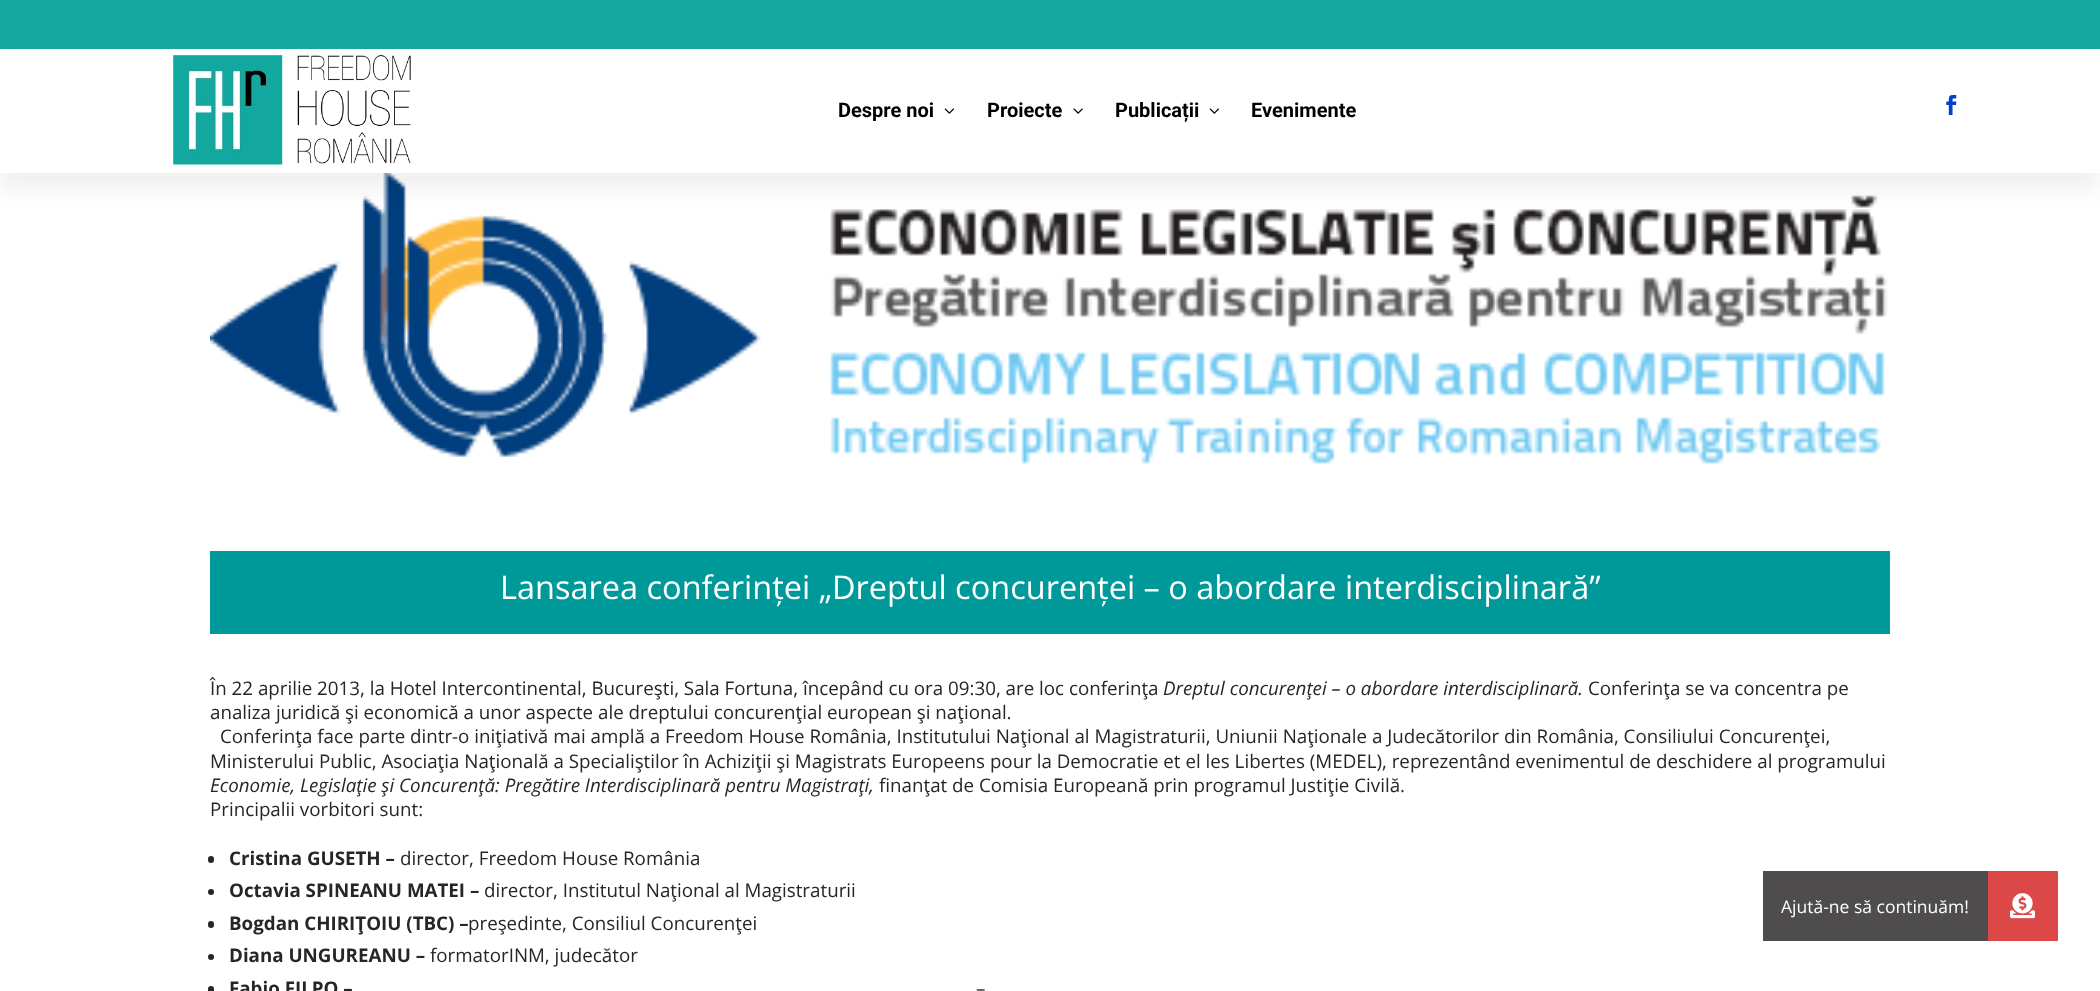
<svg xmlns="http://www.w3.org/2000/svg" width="2100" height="991">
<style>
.a{font:bold 20px Roboto;fill:#000}
.b{font:32.5px Open Sans;fill:#fff}
.c{font:18.75px Open Sans;fill:#262626}
.d{font:italic 18.75px Open Sans;fill:#262626}
.e{font:bold 18.75px Open Sans;fill:#262626}
.f{font:17.5px Open Sans;fill:#fff}
</style>
<rect width="100%" height="100%" fill="#fff"/>
<path fill="#13a89e" d="M0 0h2100v49H0z"/>
<image href="5.png" x="210" y="173" width="1678" height="291"/>
<path fill="#0000000f" filter="blur(11px)" d="M0 68h2100v123H0z"/>
<path fill="#fff" d="M0 57h2100v116H0z"/>
<image href="1.png" x="173" y="55" width="238" height="110"/>
<image href="2.png" x="944" y="108" width="10" height="6"/>
<image href="3.png" x="1073" y="108" width="10" height="6"/>
<image href="2.png" x="1209" y="108" width="10" height="6"/>
<image href="4.png" x="1946" y="95" width="11" height="20"/>
<path fill="#099" d="M210 551h1680v83H210z"/>
<rect fill="#262626" x="208" y="856" width="6" height="7" rx="3"/>
<circle fill="#262626" cx="211" cy="892" r="3"/>
<rect fill="#262626" x="208" y="921" width="6" height="7" rx="3"/>
<circle fill="#262626" cx="211" cy="957" r="3"/>
<rect fill="#262626" x="208" y="986" width="6" height="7" rx="3"/>
<path fill="#dc4848" d="M1988 871h70v70H1988z"/>
<path fill="#4e4c4c" d="M1763 871h225v70H1763z"/>
<image href="6.png" x="2010" y="893" width="25" height="26"/>
<text class="a" x="838" y="117">Despre noi</text>
<text class="a" x="987" y="117">Proiecte</text>
<text class="a" x="1115" y="117">Publicații</text>
<text class="a" x="1251" y="117">Evenimente</text>
<text class="b" x="500" y="599">Lansarea conferinței „Dreptul concurenței – o abordare interdisciplinară”</text>
<text class="c" x="210" y="695">În 22 aprilie 2013, la Hotel Intercontinental, Bucureşti, Sala Fortuna, începând cu ora 09:30, are loc conferinţa</text>
<text class="d" x="1163" y="695">Dreptul concurenţei – o abordare interdisciplinară.</text>
<text class="c" x="1588" y="695">Conferinţa se va concentra pe</text>
<text class="c" x="210" y="719">analiza juridică şi economică a unor aspecte ale dreptului concurenţial european şi naţional.</text>
<text class="c" x="220" y="743">Conferinţa face parte dintr-o iniţiativă mai amplă a Freedom House România, Institutului Naţional al Magistraturii, Uniunii Naţionale a Judecătorilor din România, Consiliului Concurenţei,</text>
<text class="c" x="210" y="768">Ministerului Public, Asociaţia Naţională a Specialiştilor în Achiziţii şi Magistrats Europeens pour la Democratie et el les Libertes (MEDEL), reprezentând evenimentul de deschidere al programului</text>
<text class="d" x="210" y="792">Economie, Legislaţie şi Concurenţă: Pregătire Interdisciplinară pentru Magistraţi,</text>
<text class="c" x="879" y="792">finanţat de Comisia Europeană prin programul Justiţie Civilă.</text>
<text class="c" x="210" y="816">Principalii vorbitori sunt:</text>
<text class="e" x="229" y="865">Cristina GUSETH –</text>
<text class="c" x="400" y="865">director, Freedom House România</text>
<text class="e" x="229" y="897">Octavia SPINEANU MATEI –</text>
<text class="c" x="484" y="897">director, Institutul Naţional al Magistraturii</text>
<text class="e" x="229" y="930">Bogdan CHIRIŢOIU (TBC) –</text>
<text class="c" x="468" y="930">preşedinte, Consiliul Concurenţei</text>
<text class="e" x="229" y="962">Diana UNGUREANU –</text>
<text class="c" x="430" y="962">formatorINM, judecător</text>
<text class="e" x="229" y="995">Fabio FILPO –</text>
<text class="c" x="976" y="995">–</text>
<text class="f" x="1781" y="913">Ajută-ne să continuăm!</text>
</svg>
